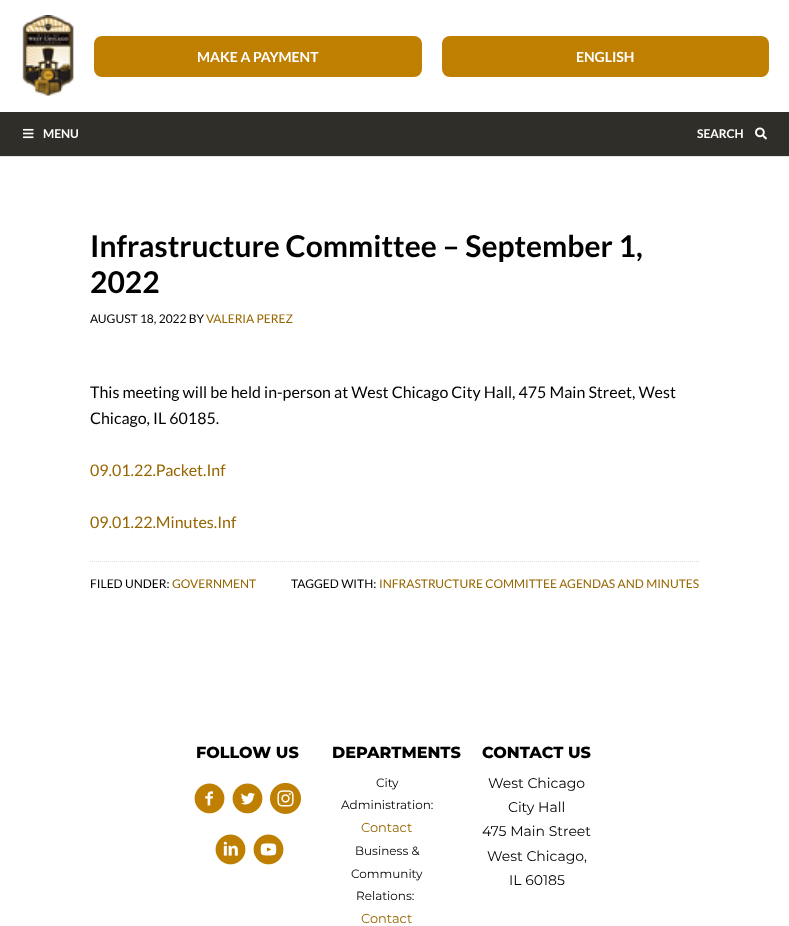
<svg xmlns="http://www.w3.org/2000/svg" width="789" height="926">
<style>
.a{font:bold 14px Lato;fill:#fff}
.b{font:bold 12px Lato;fill:#fff}
.c{font:bold 30px Lato;fill:#000}
.d{font:12px Lato;fill:#000}
.e{font:12px Lato;fill:#966600}
.f{font:16px Lato;fill:#000}
.g{font:16px Lato;fill:#966600}
.h{font:800 16px Montserrat;fill:#000}
.i{font:12px Montserrat;fill:#000}
.j{font:13px Montserrat;fill:#966600}
.k{font:14px Montserrat;fill:#000}
</style>
<rect width="100%" height="100%" fill="#fff"/>
<path fill="#e5e5e5" d="M0 156h789v1H0z"/>
<image href="1.png" x="22" y="15" width="52" height="81"/>
<rect fill="#bf7f00" x="94" y="36" width="328" height="41" rx="8"/>
<rect fill="#bf7f00" x="442" y="36" width="327" height="41" rx="8"/>
<path fill="#302e29" d="M0 112h789v44H0z"/>
<image href="2.png" x="23" y="128" width="11" height="11"/>
<image href="3.png" x="755" y="127" width="12" height="13"/>
<path fill="none" stroke="#ddd" stroke-dasharray="1 1" d="M90 561.5h609"/>
<image href="4.png" x="194" y="783" width="31" height="31"/>
<image href="5.png" x="232" y="783" width="31" height="31"/>
<image href="6.png" x="270" y="782" width="31" height="32"/>
<image href="7.png" x="215" y="834" width="31" height="31"/>
<image href="8.png" x="253" y="834" width="31" height="31"/>
<text class="a" x="197" y="62">MAKE A PAYMENT</text>
<text class="a" x="576" y="62">ENGLISH</text>
<text class="b" x="43" y="138">MENU</text>
<text class="b" x="697" y="138">SEARCH</text>
<text class="c" x="90" y="257">Infrastructure Committee – September 1,</text>
<text class="c" x="90" y="293">2022</text>
<text class="d" x="90" y="323">AUGUST 18, 2022 BY</text>
<text class="e" x="206" y="323">VALERIA PEREZ</text>
<text class="f" x="90" y="398">This meeting will be held in-person at West Chicago City Hall, 475 Main Street, West</text>
<text class="f" x="90" y="424">Chicago, IL 60185.</text>
<text class="g" x="90" y="476">09.01.22.Packet.Inf</text>
<text class="g" x="90" y="528">09.01.22.Minutes.Inf</text>
<text class="d" x="90" y="588">FILED UNDER:</text>
<text class="e" x="172" y="588">GOVERNMENT</text>
<text class="d" x="291" y="588">TAGGED WITH:</text>
<text class="e" x="379" y="588">INFRASTRUCTURE COMMITTEE AGENDAS AND MINUTES</text>
<text class="h" x="196" y="758">FOLLOW US</text>
<text class="h" x="332" y="758">DEPARTMENTS</text>
<text class="i" x="376" y="787">City</text>
<text class="i" x="341" y="809">Administration:</text>
<text class="j" x="361" y="832">Contact</text>
<text class="i" x="355" y="855">Business &amp;</text>
<text class="i" x="351" y="878">Community</text>
<text class="i" x="356" y="900">Relations:</text>
<text class="j" x="361" y="923">Contact</text>
<text class="h" x="482" y="758">CONTACT US</text>
<text class="k" x="488" y="788">West Chicago</text>
<text class="k" x="508" y="812">City Hall</text>
<text class="k" x="482" y="836">475 Main Street</text>
<text class="k" x="487" y="861">West Chicago,</text>
<text class="k" x="509" y="885">IL 60185</text>
</svg>
